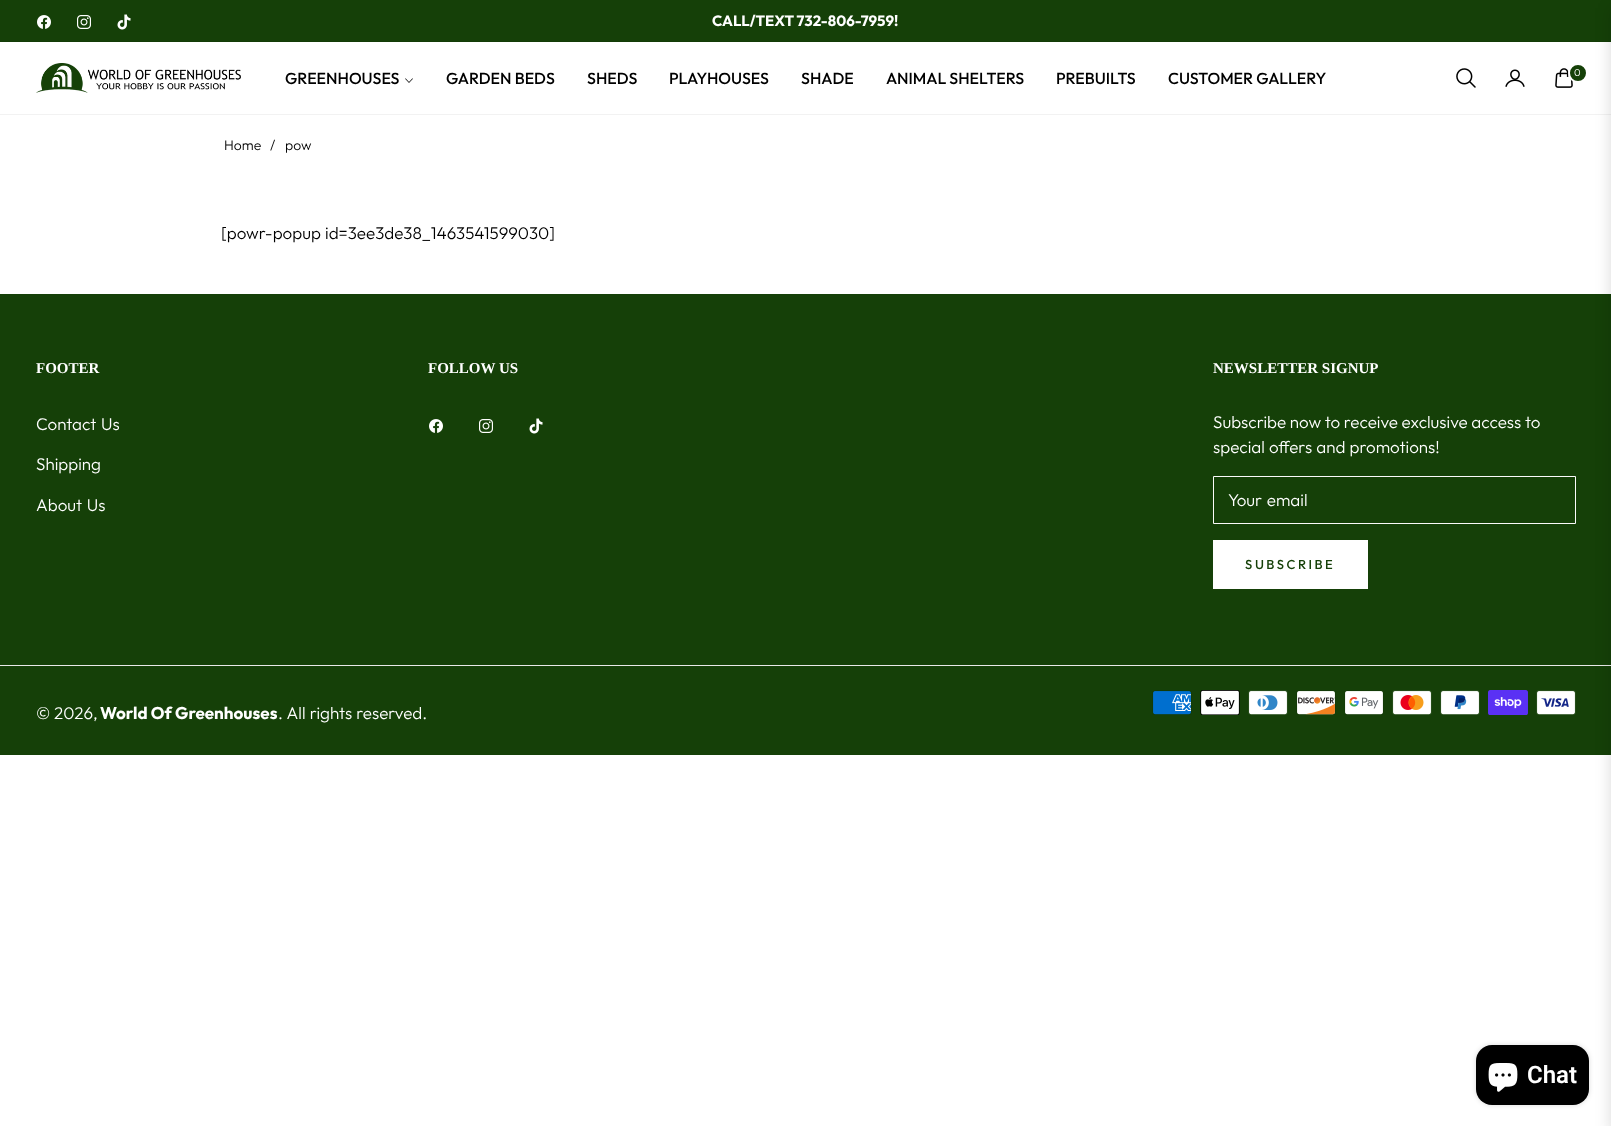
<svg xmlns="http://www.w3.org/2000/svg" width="1611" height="1126">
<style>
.a{font:bold 15px Outfit;fill:#fff}
.b{font:500 16px Outfit;fill:#000}
.c{font:300 10px Outfit;fill:#fff}
.d{font:300 14px Outfit;fill:#000}
.e{font:300 17px Outfit;fill:#000}
.f{font:bold 15px Liberation Serif;fill:#fff}
.g{font:300 17px Outfit;fill:#fff}
.h{font:500 13px Outfit;letter-spacing:2.5px;fill:#154008}
.i{font:bold 17px Outfit;fill:#fff}
.j{font:600 24px Roboto;fill:#fff}
</style>
<rect width="100%" height="100%" fill="#fff"/>
<path fill="#154008" d="M0 0h1611v42H0z"/>
<image href="1.png" x="37" y="15" width="14" height="14"/>
<image href="2.png" x="77" y="15" width="14" height="14"/>
<image href="3.png" x="117" y="14" width="14" height="16"/>
<path fill="none" stroke="#0000000d" d="M-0.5 41.5h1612v73H-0.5z"/>
<image href="4.png" x="36" y="63" width="205" height="30"/>
<image href="5.png" x="405" y="78" width="8" height="5"/>
<image href="6.png" x="1456" y="68" width="20" height="20"/>
<image href="7.png" x="1505" y="69" width="20" height="18"/>
<image href="8.png" x="1555" y="68" width="18" height="20"/>
<circle fill="#154008" stroke="#fff" stroke-width="2" cx="1578" cy="73" r="9"/>
<path fill="#154008" d="M0 294h1611v461H0z"/>
<path fill="#e9e9e9" d="M0 665h1611v1H0z"/>
<path fill="#00000026" filter="blur(8px)" d="M1611 8h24v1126H1611z"/>
<image href="1.png" x="429" y="419" width="14" height="14"/>
<image href="2.png" x="479" y="419" width="14" height="14"/>
<image href="3.png" x="529" y="418" width="14" height="16"/>
<path fill="none" stroke="#fafafa" d="M1213.5 476.5h362v47H1213.5z"/>
<path fill="#fff" d="M1213 540h155v49H1213z"/>
<image href="9.png" x="1152" y="690" width="40" height="25"/>
<image href="10.png" x="1200" y="690" width="40" height="25"/>
<image href="11.png" x="1248" y="690" width="40" height="25"/>
<image href="12.png" x="1296" y="690" width="40" height="25"/>
<image href="13.png" x="1344" y="690" width="40" height="25"/>
<image href="14.png" x="1392" y="690" width="40" height="25"/>
<image href="15.png" x="1440" y="690" width="40" height="25"/>
<image href="16.png" x="1488" y="690" width="40" height="25"/>
<image href="17.png" x="1536" y="690" width="40" height="25"/>
<rect fill="#00000026" filter="blur(2.5px)" x="1476" y="1045" width="113" height="60" rx="16"/>
<rect fill="#000" x="1476" y="1045" width="113" height="60" rx="16"/>
<image href="18.png" x="1488" y="1063" width="30" height="29"/>
<text class="a" x="712" y="26">CALL/TEXT 732-806-7959!</text>
<text class="b" x="285" y="84">GREENHOUSES</text>
<text class="b" x="446" y="84">GARDEN BEDS</text>
<text class="b" x="587" y="84">SHEDS</text>
<text class="b" x="669" y="84">PLAYHOUSES</text>
<text class="b" x="801" y="84">SHADE</text>
<text class="b" x="886" y="84">ANIMAL SHELTERS</text>
<text class="b" x="1056" y="84">PREBUILTS</text>
<text class="b" x="1168" y="84">CUSTOMER GALLERY</text>
<text class="c" x="1574" y="76">0</text>
<text class="d" x="224" y="150">Home</text>
<text class="d" x="270" y="150">/</text>
<text class="d" x="285" y="150">pow</text>
<text class="e" x="221" y="239" word-spacing="0.5">[powr-popup id=3ee3de38_1463541599030]</text>
<text class="f" x="36" y="373">FOOTER</text>
<text class="g" x="36" y="430" word-spacing="1">Contact Us</text>
<text class="g" x="36" y="470">Shipping</text>
<text class="g" x="36" y="511" word-spacing="1">About Us</text>
<text class="f" x="428" y="373">FOLLOW US</text>
<text class="f" x="1213" y="373">NEWSLETTER SIGNUP</text>
<text class="g" x="1213" y="428">Subscribe now to receive exclusive access to</text>
<text class="g" x="1213" y="453" word-spacing="0.5">special offers and promotions!</text>
<text class="g" x="1228" y="506" word-spacing="1">Your email</text>
<text class="h" x="1245" y="569">SUBSCRIBE</text>
<text class="g" x="36" y="719">© 2026,</text>
<text class="i" x="100" y="719">World Of Greenhouses</text>
<text class="g" x="278" y="719" word-spacing="0.5">. All rights reserved.</text>
<text class="j" x="1527" y="1083">Chat</text>
</svg>
